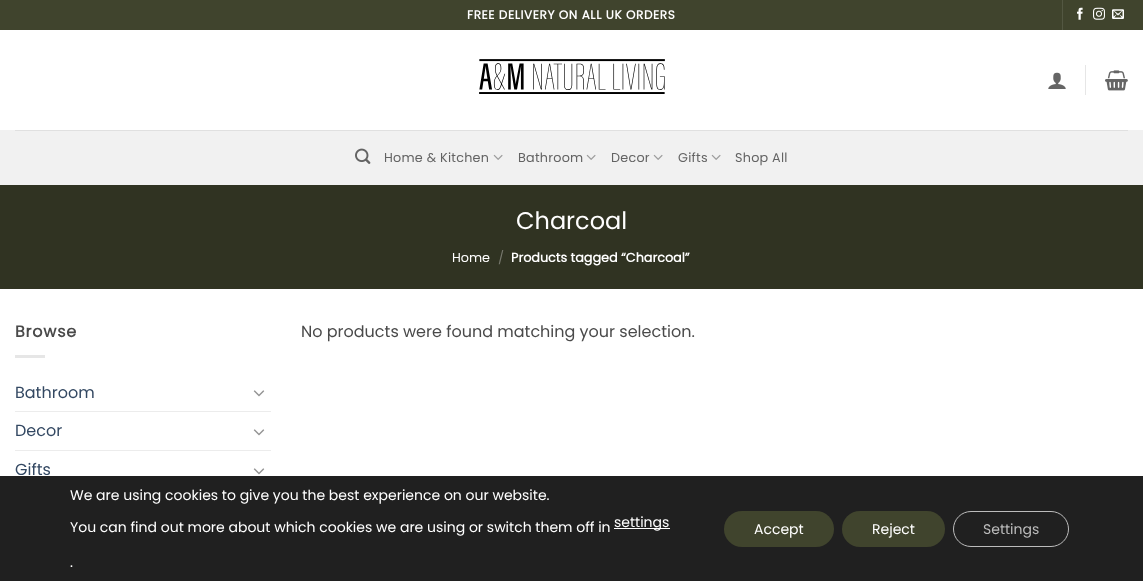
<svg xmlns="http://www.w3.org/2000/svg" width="1143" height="581">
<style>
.a{font:bold 12px Poppins;letter-spacing:0.6px;fill:#fff}
.b{font:12.75px Poppins;letter-spacing:0.25px;fill:#636363}
.c{font:24px Poppins;fill:#fff}
.d{font:12.75px Poppins;fill:#fff}
.e{font:12.75px Poppins;fill:#787a6f}
.f{font:bold 12.75px Poppins;fill:#fff}
.g{font:bold 16px Poppins;letter-spacing:0.75px;fill:#4a4a4a}
.h{font:16px Poppins;fill:#334862}
.i{font:16px Poppins;fill:#4a4a4a}
.j{font:14px Poppins;fill:#fff}
.k{font:14px Poppins;fill:#bcbcbc}
</style>
<rect width="100%" height="100%" fill="#fff"/>
<path fill="#40442d" d="M0 0h1143v30H0z"/>
<path fill="#535742" d="M1062 0h1v30H1062z"/>
<image href="1.png" x="1077" y="7" width="6" height="13"/>
<image href="2.png" x="1093" y="7" width="12" height="13"/>
<image href="3.png" x="1112" y="9" width="12" height="10"/>
<image href="4.png" x="479" y="59" width="186" height="35"/>
<image href="5.png" x="1048" y="72" width="18" height="17"/>
<path fill="#e6e6e6" d="M1085 65h1v30H1085z"/>
<image href="6.png" x="1105" y="70" width="23" height="21"/>
<path fill="#f1f1f1" d="M0 130h1143v55H0z"/>
<path fill="#e0e0e0" d="M15 130h1113v1H15z"/>
<image href="7.png" x="355" y="148" width="16" height="16"/>
<image href="8.png" x="493" y="154" width="10" height="6"/>
<image href="8.png" x="586" y="154" width="10" height="6"/>
<image href="8.png" x="653" y="154" width="10" height="6"/>
<image href="8.png" x="711" y="154" width="10" height="6"/>
<path fill="#303322" d="M0 185h1143v104H0z"/>
<path fill="#e6e6e6" d="M15 355h30v3H15z"/>
<image href="9.png" x="253" y="390" width="12" height="7"/>
<path fill="#ececec" d="M15 411h256v1H15z"/>
<image href="9.png" x="253" y="429" width="12" height="7"/>
<path fill="#ececec" d="M15 450h256v1H15z"/>
<image href="9.png" x="253" y="468" width="12" height="7"/>
<path fill="#202020" d="M0 476h1143v105H0z"/>
<path fill="#fff" d="M614 528h56v1H614z"/>
<rect fill="#40442d" x="724" y="511" width="110" height="36" rx="18"/>
<rect fill="#40442d" x="842" y="511" width="103" height="36" rx="18"/>
<rect fill="none" stroke="#bcbcbc" x="953.5" y="511.5" width="115" height="35" rx="17.5"/>
<text class="a" x="467" y="19">FREE DELIVERY ON ALL UK ORDERS</text>
<text class="b" x="384" y="162">Home &amp; Kitchen</text>
<text class="b" x="518" y="162">Bathroom</text>
<text class="b" x="611" y="162">Decor</text>
<text class="b" x="678" y="162">Gifts</text>
<text class="b" x="735" y="162">Shop All</text>
<text class="c" x="516" y="229">Charcoal</text>
<text class="d" x="452" y="262">Home</text>
<text class="e" x="498" y="262">/</text>
<text class="f" x="511" y="262">Products tagged “Charcoal”</text>
<text class="g" x="15" y="337">Browse</text>
<text class="h" x="15" y="398">Bathroom</text>
<text class="h" x="15" y="436">Decor</text>
<text class="h" x="15" y="475">Gifts</text>
<text class="i" x="301" y="337">No products were found matching your selection.</text>
<path fill="#fff" d="M20 475h28v1H20z"/>
<text class="j" x="70" y="500">We are using cookies to give you the best experience on our website.</text>
<text class="j" x="70" y="532">You can find out more about which cookies we are using or switch them off in</text>
<text class="j" x="614" y="527">settings</text>
<text class="j" x="70" y="567">.</text>
<text class="j" x="754" y="534">Accept</text>
<text class="j" x="872" y="534">Reject</text>
<text class="k" x="983" y="534">Settings</text>
</svg>
